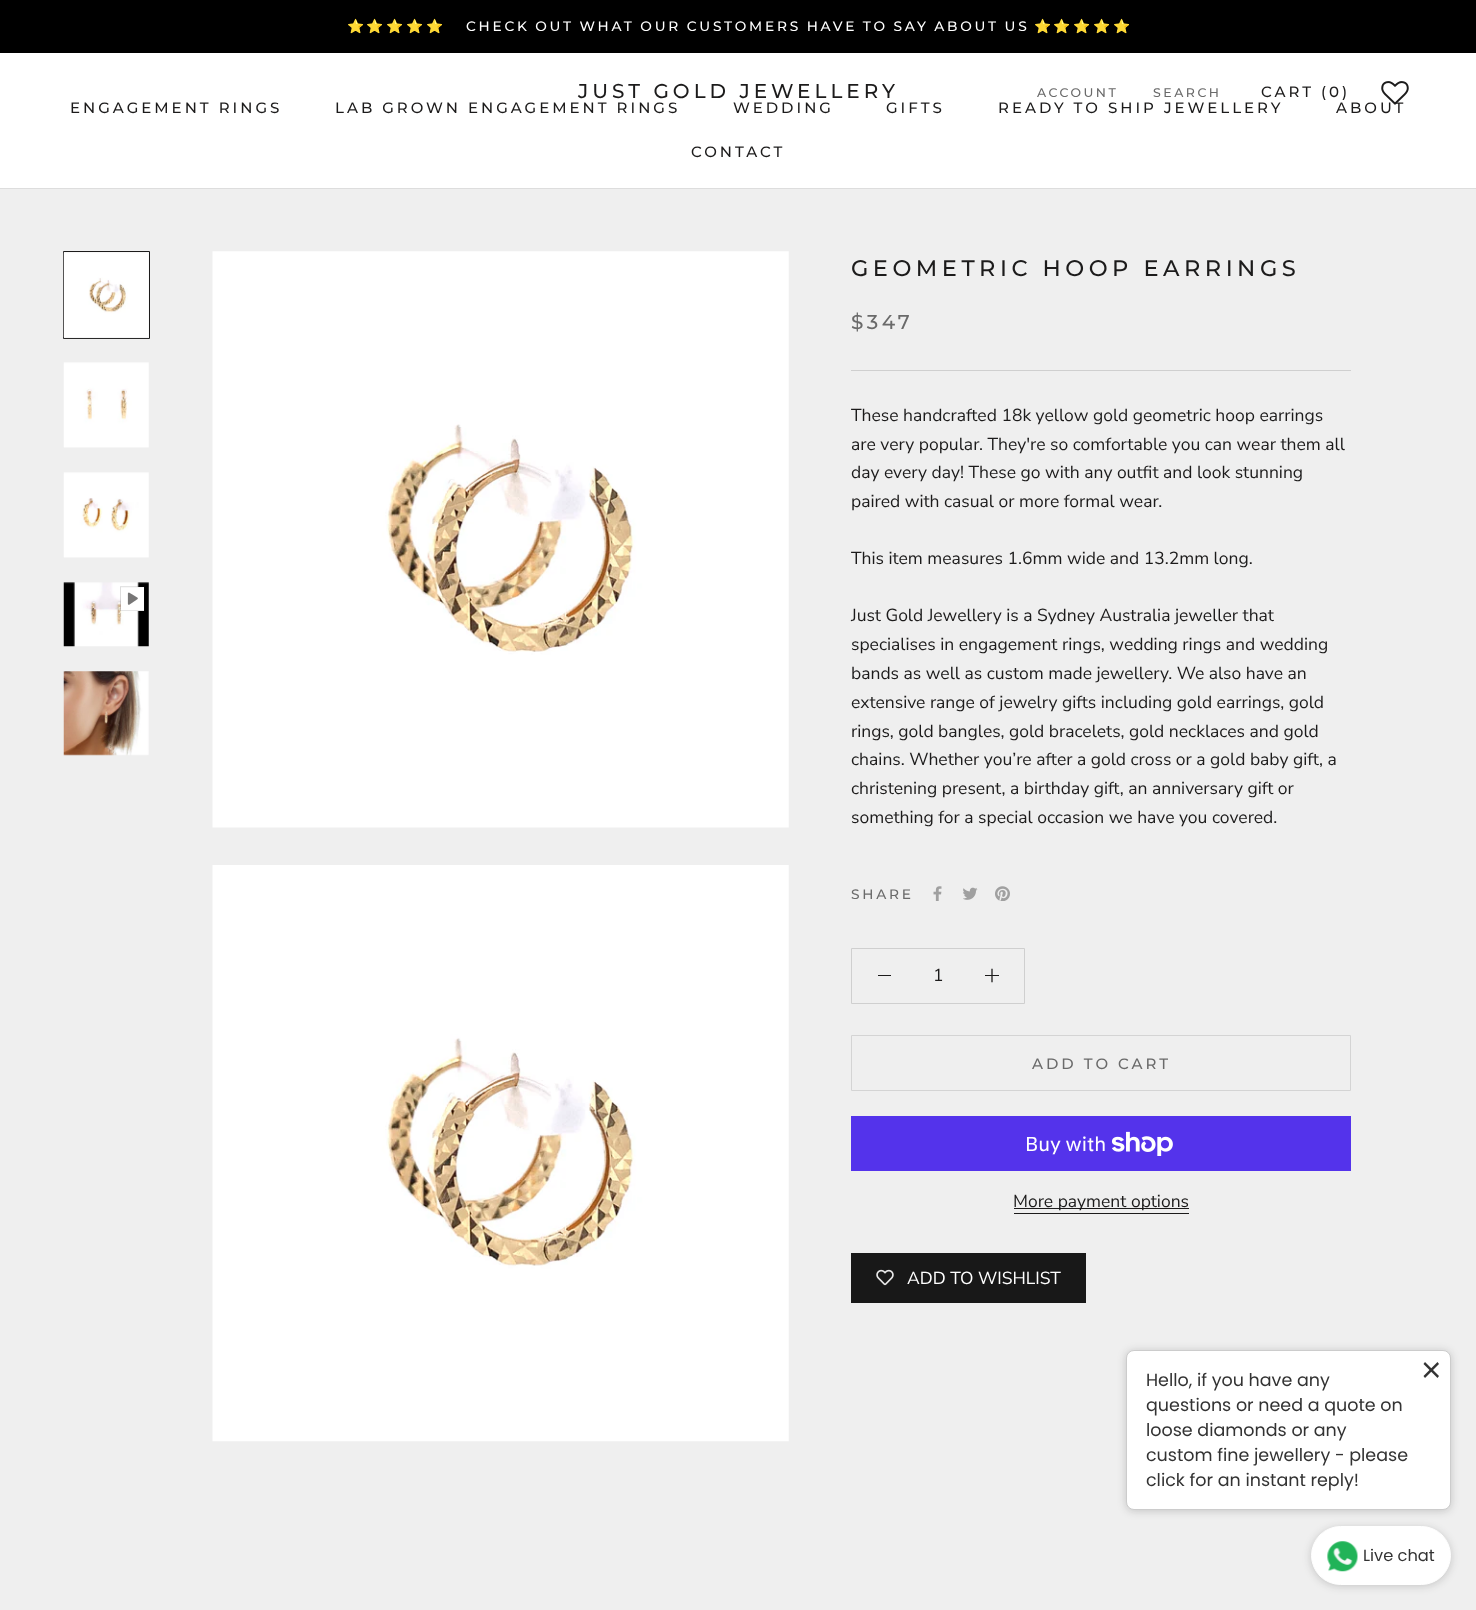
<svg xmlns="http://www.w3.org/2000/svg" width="1476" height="1610">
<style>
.a{font:13.75px Noto Color Emoji;letter-spacing:2.75px;fill:#fff}
.b{font:500 13.75px Montserrat;letter-spacing:2.75px;fill:#fff}
.c{font:500 20px Montserrat;letter-spacing:4px;fill:#1c1b1b}
.d{font:500 12.5px Montserrat;letter-spacing:2.5px;fill:#6a6a6a}
.e{font:500 15px Montserrat;letter-spacing:3px;fill:#1c1b1b}
.f{font:500 22.5px Montserrat;letter-spacing:4.5px;fill:#1c1b1b}
.g{font:500 20px Montserrat;letter-spacing:3.5px;fill:#6a6a6a}
.h{font:17.5px Nunito Sans;fill:#1c1b1b}
.i{font:500 13.75px Montserrat;letter-spacing:2.75px;fill:#6a6a6a}
.j{font:500 15px Montserrat;letter-spacing:3px;fill:#6a6a6a}
.k{font:20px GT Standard;fill:#fff}
.l{font:17.5px Nunito Sans;fill:#fff}
.m{font:17.5px Poppins;fill:#333}
.n{font:16.25px Poppins;fill:#333}
</style>
<rect width="100%" height="100%" fill="#efefef"/>
<path fill="#000" d="M0 0h1476v53H0z"/>
<path fill="#fff" d="M0 53h1476v135H0z"/>
<path fill="#ddd" d="M0 188h1476v1H0z"/>
<path fill="none" stroke="#1c1b1b" d="M63.5 251.5h86v87H63.5z"/>
<image href="2.png" x="63" y="252" width="86" height="87"/>
<image href="3.png" x="63" y="362" width="86" height="86"/>
<image href="4.png" x="63" y="472" width="86" height="86"/>
<image href="5.png" x="63" y="582" width="86" height="65"/>
<image href="6.png" x="120" y="586" width="25" height="25"/>
<image href="7.png" x="63" y="671" width="86" height="85"/>
<image href="8.png" x="212" y="251" width="577" height="577"/>
<image href="9.png" x="212" y="865" width="577" height="577"/>
<path fill="#cfcfcf" d="M851 370h500v1H851z"/>
<image href="10.png" x="933" y="886" width="9" height="15"/>
<image href="11.png" x="963" y="887" width="15" height="13"/>
<image href="12.png" x="995" y="886" width="15" height="15"/>
<path fill="none" stroke="#cfcfcf" d="M851.5 948.5h173v55H851.5z"/>
<path fill="#1c1b1b" d="M878 975h13v1H878z"/>
<path fill="none" stroke="#1c1b1b" stroke-width="1.3" stroke-linecap="square" d="M992 969.5v12"/>
<path fill="#1c1b1b" d="M985 975h14v1H985z"/>
<path fill="none" stroke="#d4d4d4" d="M851.5 1035.5h499v55H851.5z"/>
<path fill="#5433eb" d="M851 1116h500v55H851z"/>
<image href="13.png" x="1111" y="1131" width="62" height="25"/>
<path fill="#1c1b1b" d="M1014 1208h175v1H1014z"/>
<path fill="#1c1b1b" d="M1014 1213h175v1H1014z"/>
<path fill="#181818" d="M851 1253h235v50H851z"/>
<image href="14.png" x="876" y="1269" width="18" height="17"/>
<rect fill="#1b1b1b33" filter="blur(4px)" x="1126" y="1351" width="325" height="160" rx="8"/>
<rect fill="#fff" stroke="#ccc" x="1126.5" y="1350.5" width="324" height="159" rx="7.5"/>
<path fill="#333" d="M1425 1362l14 14l-1.5 2l-14-14z"/>
<path fill="#333" d="M1437.5 1362l1.5 2l-14 14l-1.5-2z"/>
<rect fill="#1b1b1b33" filter="blur(4px)" x="1311" y="1528" width="140" height="58" rx="29"/>
<rect fill="#fff" stroke="#fff" x="1311.5" y="1526.5" width="139" height="58" rx="29"/>
<image href="15.png" x="1327" y="1541" width="31" height="31"/>
<text class="a" x="347" y="31">⭐️⭐️⭐️⭐️⭐️</text>
<text class="b" x="466" y="31" word-spacing="-0.75">CHECK OUT WHAT OUR CUSTOMERS HAVE TO SAY ABOUT US</text>
<text class="a" x="1034" y="31">⭐️⭐️⭐️⭐️⭐️</text>
<text class="c" x="578" y="98">JUST GOLD JEWELLERY</text>
<text class="d" x="1037" y="97">ACCOUNT</text>
<text class="d" x="1153" y="97">SEARCH</text>
<text class="e" x="1261" y="97">CART (0)</text>
<text class="e" x="70" y="113">ENGAGEMENT RINGS</text>
<text class="e" x="335" y="113">LAB GROWN ENGAGEMENT RINGS</text>
<text class="e" x="733" y="113">WEDDING</text>
<text class="e" x="886" y="113">GIFTS</text>
<text class="e" x="998" y="113">READY TO SHIP JEWELLERY</text>
<text class="e" x="1336" y="113">ABOUT</text>
<image href="1.png" x="1381" y="81" width="28" height="24"/>
<text class="e" x="691" y="157">CONTACT</text>
<text class="f" x="851" y="276">GEOMETRIC HOOP EARRINGS</text>
<text class="g" x="851" y="329">$347</text>
<text class="h" x="851" y="421">These handcrafted 18k yellow gold geometric hoop earrings</text>
<text class="h" x="851" y="450">are very popular. They're so comfortable you can wear them all</text>
<text class="h" x="851" y="478">day every day! These go with any outfit and look stunning</text>
<text class="h" x="851" y="507">paired with casual or more formal wear.</text>
<text class="h" x="851" y="564">This item measures 1.6mm wide and 13.2mm long.</text>
<text class="h" x="851" y="621">Just Gold Jewellery is a Sydney Australia jeweller that</text>
<text class="h" x="851" y="650">specialises in engagement rings, wedding rings and wedding</text>
<text class="h" x="851" y="679">bands as well as custom made jewellery. We also have an</text>
<text class="h" x="851" y="708">extensive range of jewelry gifts including gold earrings, gold</text>
<text class="h" x="851" y="737">rings, gold bangles, gold bracelets, gold necklaces and gold</text>
<text class="h" x="851" y="765">chains. Whether you’re after a gold cross or a gold baby gift, a</text>
<text class="h" x="851" y="794">christening present, a birthday gift, an anniversary gift or</text>
<text class="h" x="851" y="823">something for a special occasion we have you covered.</text>
<text class="i" x="851" y="899">SHARE</text>
<text class="h" x="933" y="981">1</text>
<text class="j" x="1032" y="1069">ADD TO CART</text>
<text class="k" x="1025" y="1151">Buy with</text>
<text class="h" x="1013" y="1207">More payment options</text>
<text class="l" x="907" y="1284">ADD TO WISHLIST</text>
<text class="m" x="1146" y="1386">Hello, if you have any</text>
<text class="m" x="1146" y="1411">questions or need a quote on</text>
<text class="m" x="1146" y="1436">loose diamonds or any</text>
<text class="m" x="1146" y="1461">custom fine jewellery - please</text>
<text class="m" x="1146" y="1486">click for an instant reply!</text>
<text class="n" x="1363" y="1561">Live chat</text>
</svg>
